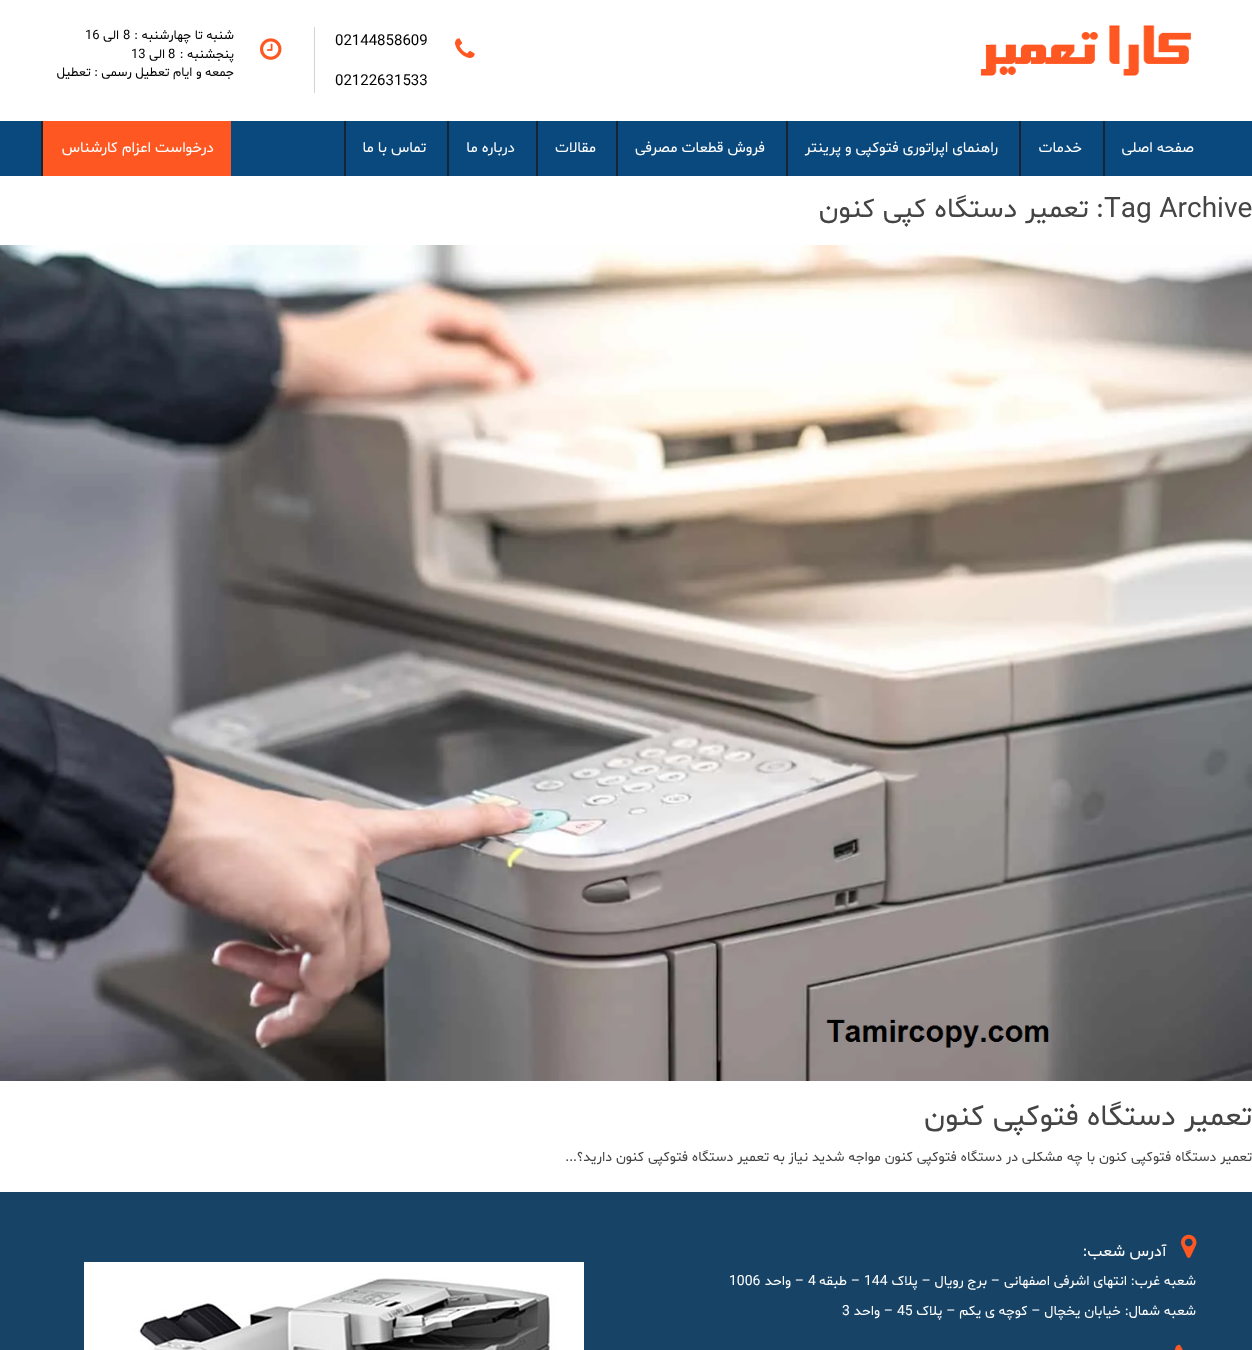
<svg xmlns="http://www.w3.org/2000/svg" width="1252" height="1350">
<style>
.a{font:15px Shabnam;fill:#000}
.b{font:13px Shabnam;direction:rtl;fill:#000}
.c{font:13px Shabnam;fill:#000}
.d{font:15px Shabnam;direction:rtl;fill:#fff}
.e{font:28px Shabnam;fill:#444}
.f{font:28px Shabnam;direction:rtl;fill:#444}
.g{font:30px Shabnam;direction:rtl;fill:#444}
.h{font:14px Shabnam;direction:rtl;fill:#444}
.i{font:16px Shabnam;direction:rtl;fill:#fff}
.j{font:14px Shabnam;direction:rtl;fill:#fff}
.k{font:14px Shabnam;fill:#fff}
</style>
<rect width="100%" height="100%" fill="#fff"/>
<image href="1.png" x="980" y="25" width="212" height="51"/>
<image href="2.png" x="455" y="38" width="20" height="20"/>
<path fill="#d3d3d3" d="M314 27h1v66H314z"/>
<image href="3.png" x="260" y="38" width="22" height="22"/>
<path fill="#0a497e" d="M0 121h1252v55H0z"/>
<path fill="#192432" d="M1103 121h2v55H1103z"/>
<path fill="#192432" d="M1019 121h2v55H1019z"/>
<path fill="#192432" d="M786 121h2v55H786z"/>
<path fill="#192432" d="M616 121h2v55H616z"/>
<path fill="#192432" d="M536 121h2v55H536z"/>
<path fill="#192432" d="M447 121h2v55H447z"/>
<path fill="#192432" d="M344 121h2v55H344z"/>
<path fill="#ff5722" d="M43 121h188v55H43z"/>
<path fill="#192432" d="M41 121h2v55H41z"/>
<image href="4.png" x="0" y="245" width="1252" height="836"/>
<path fill="#174466" d="M0 1192h1252v158H0z"/>
<image href="5.png" x="1181" y="1234" width="16" height="24"/>
<image href="6.png" x="1175" y="1344" width="8" height="6"/>
<image href="7.png" x="84" y="1262" width="500" height="88"/>
<text class="a" x="335" y="45">02144858609</text>
<text class="a" x="335" y="85">02122631533</text>
<text class="b" x="234" y="39">شنبه تا چهارشنبه :</text>
<text class="c" x="123" y="39">8</text>
<text class="b" x="119" y="39">الی</text>
<text class="c" x="85" y="39">16</text>
<text class="b" x="234" y="58">پنجشنبه :</text>
<text class="c" x="168" y="58">8</text>
<text class="b" x="165" y="58">الی</text>
<text class="c" x="131" y="58">13</text>
<text class="b" x="234" y="76">جمعه و ایام تعطیل رسمی : تعطیل</text>
<text class="d" x="1194" y="152">صفحه اصلی</text>
<text class="d" x="1082" y="152">خدمات</text>
<text class="d" x="998" y="152">راهنمای اپراتوری فتوکپی و پرینتر</text>
<text class="d" x="765" y="152">فروش قطعات مصرفی</text>
<text class="d" x="596" y="152">مقالات</text>
<text class="d" x="515" y="152">درباره ما</text>
<text class="d" x="426" y="152">تماس با ما</text>
<text class="d" x="214" y="152">درخواست اعزام کارشناس</text>
<text class="e" x="1104" y="217">Tag Archive</text>
<text class="f" x="1104" y="217">: تعمیر دستگاه کپی کنون</text>
<text class="g" x="1252" y="1125">تعمیر دستگاه فتوکپی کنون</text>
<text class="h" x="1252" y="1161">تعمیر دستگاه فتوکپی کنون با چه مشکلی در دستگاه فتوکپی کنون مواجه شدید نیاز به تعمیر دستگاه فتوکپی کنون دارید؟...</text>
<text class="i" x="1166" y="1256">آدرس شعب:</text>
<text class="j" x="1196" y="1285">شعبه غرب: انتهای اشرفی اصفهانی – برج رویال – پلاک</text>
<text class="k" x="864" y="1285">144</text>
<text class="j" x="860" y="1285">– طبقه</text>
<text class="k" x="808" y="1285">4</text>
<text class="j" x="804" y="1285">– واحد</text>
<text class="k" x="729" y="1285">1006</text>
<text class="j" x="1196" y="1315">شعبه شمال: خیابان یخچال – کوچه ی یکم – پلاک</text>
<text class="k" x="897" y="1315">45</text>
<text class="j" x="893" y="1315">– واحد</text>
<text class="k" x="842" y="1315">3</text>
</svg>
